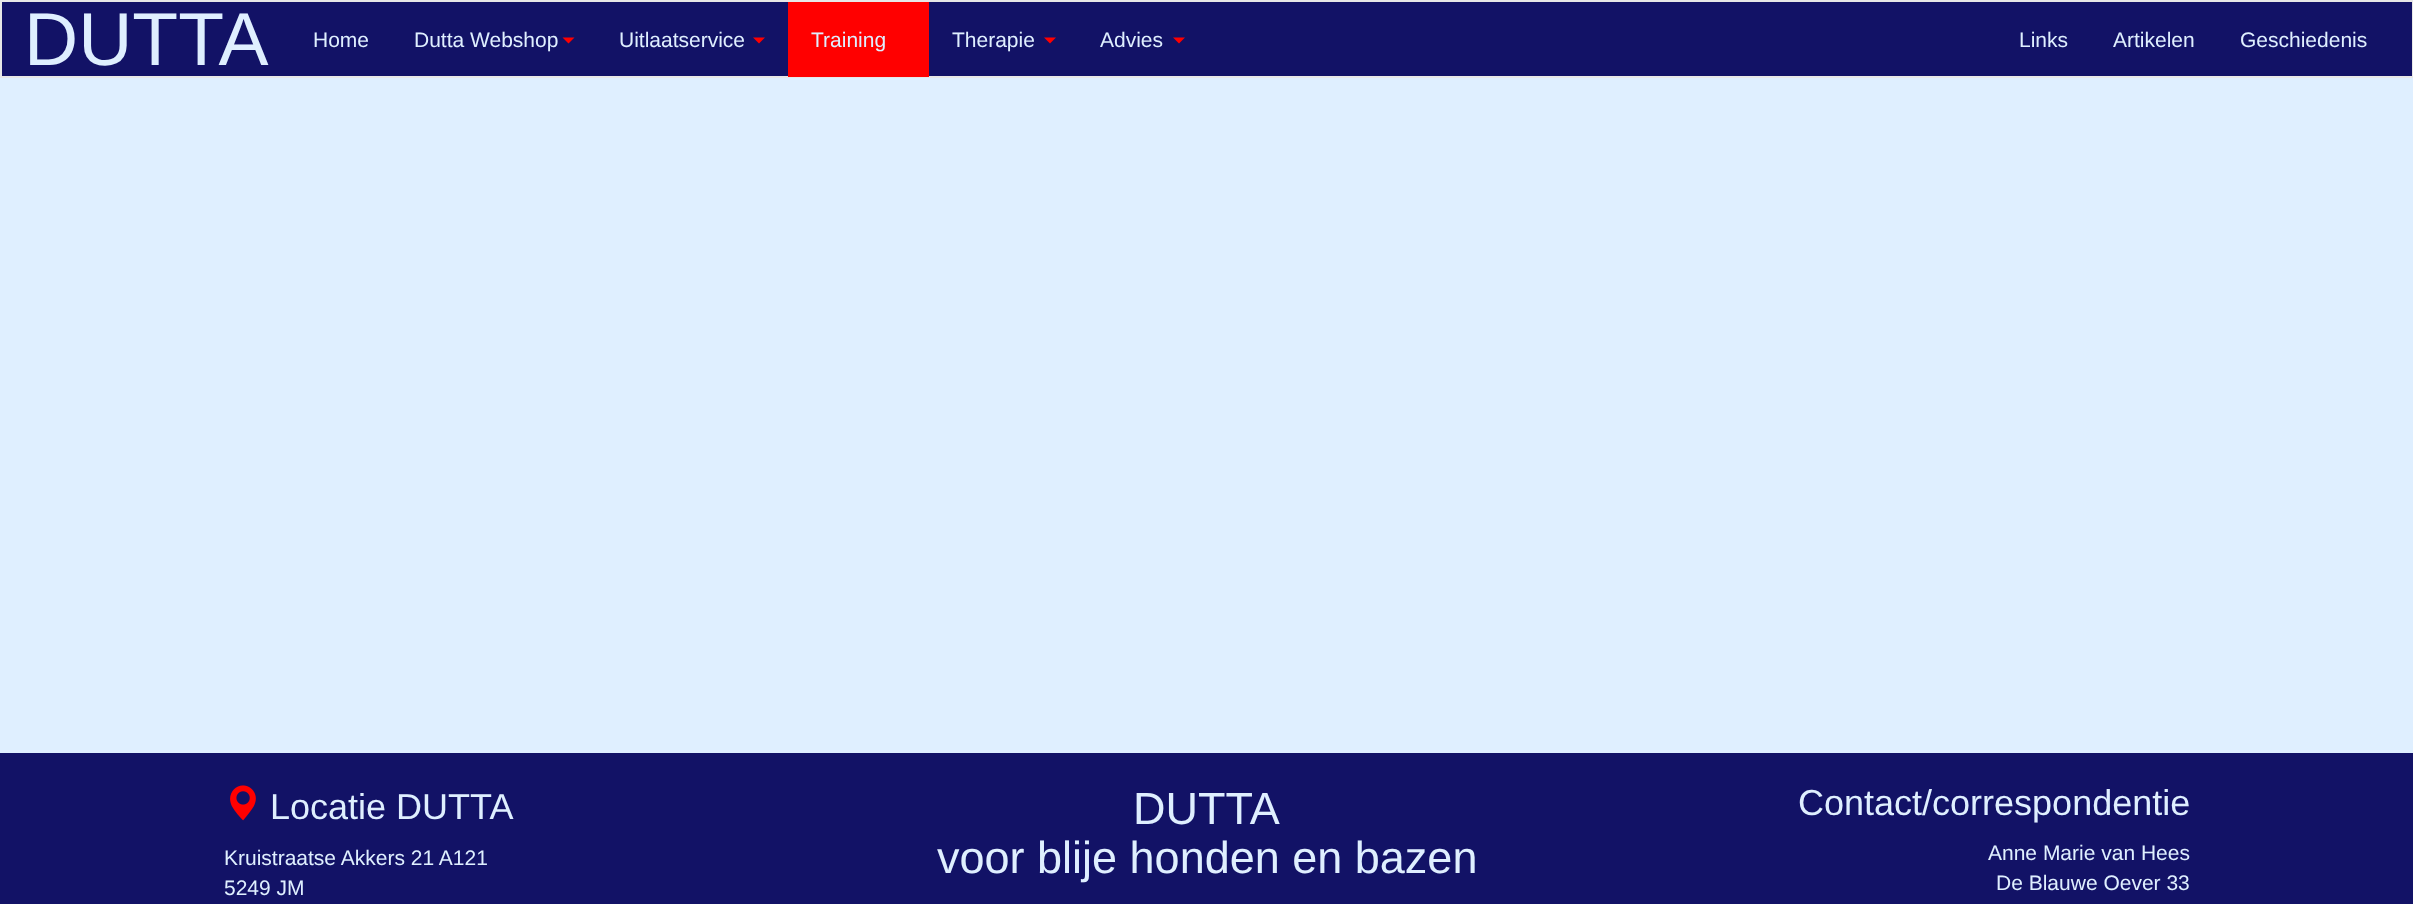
<svg xmlns="http://www.w3.org/2000/svg" width="2413" height="904">
<style>
.a{font:75px Liberation Sans;fill:#dfefff}
.b{font:21px Liberation Sans;fill:#dfefff}
.c{font:36px Liberation Sans;fill:#dfefff}
.d{font:45px Liberation Sans;fill:#dfefff}
</style>
<rect width="100%" height="100%" fill="#dfefff"/>
<path fill="#121266" stroke="#e7e7e7" stroke-width="2" d="M1 1h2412v76H1z"/>
<path fill="#f00" d="M562.5 37.5h12l-6 6z"/>
<path fill="#f00" d="M753 37.5h12l-6 6z"/>
<path fill="#f00" d="M788 2h141v75H788z"/>
<path fill="#f00" d="M1044 37.5h12l-6 6z"/>
<path fill="#f00" d="M1173 37.5h12l-6 6z"/>
<path fill="#121266" d="M0 753h2413v151H0z"/>
<image href="1.png" x="230" y="785" width="26" height="36"/>
<text class="a" x="24" y="65">DUTTA</text>
<text class="b" x="313" y="47">Home</text>
<text class="b" x="414" y="47">Dutta Webshop</text>
<text class="b" x="619" y="47">Uitlaatservice</text>
<text class="b" x="811" y="47">Training</text>
<text class="b" x="952" y="47">Therapie</text>
<text class="b" x="1100" y="47">Advies</text>
<text class="b" x="2019" y="47">Links</text>
<text class="b" x="2113" y="47">Artikelen</text>
<text class="b" x="2240" y="47">Geschiedenis</text>
<text class="c" x="270" y="819">Locatie DUTTA</text>
<text class="b" x="224" y="865">Kruistraatse Akkers 21 A121</text>
<text class="b" x="224" y="895">5249 JM</text>
<text class="d" x="1133" y="824">DUTTA</text>
<text class="d" x="937" y="873">voor blije honden en bazen</text>
<text class="c" x="1798" y="815">Contact/correspondentie</text>
<text class="b" x="1988" y="860">Anne Marie van Hees</text>
<text class="b" x="1996" y="890">De Blauwe Oever 33</text>
</svg>
